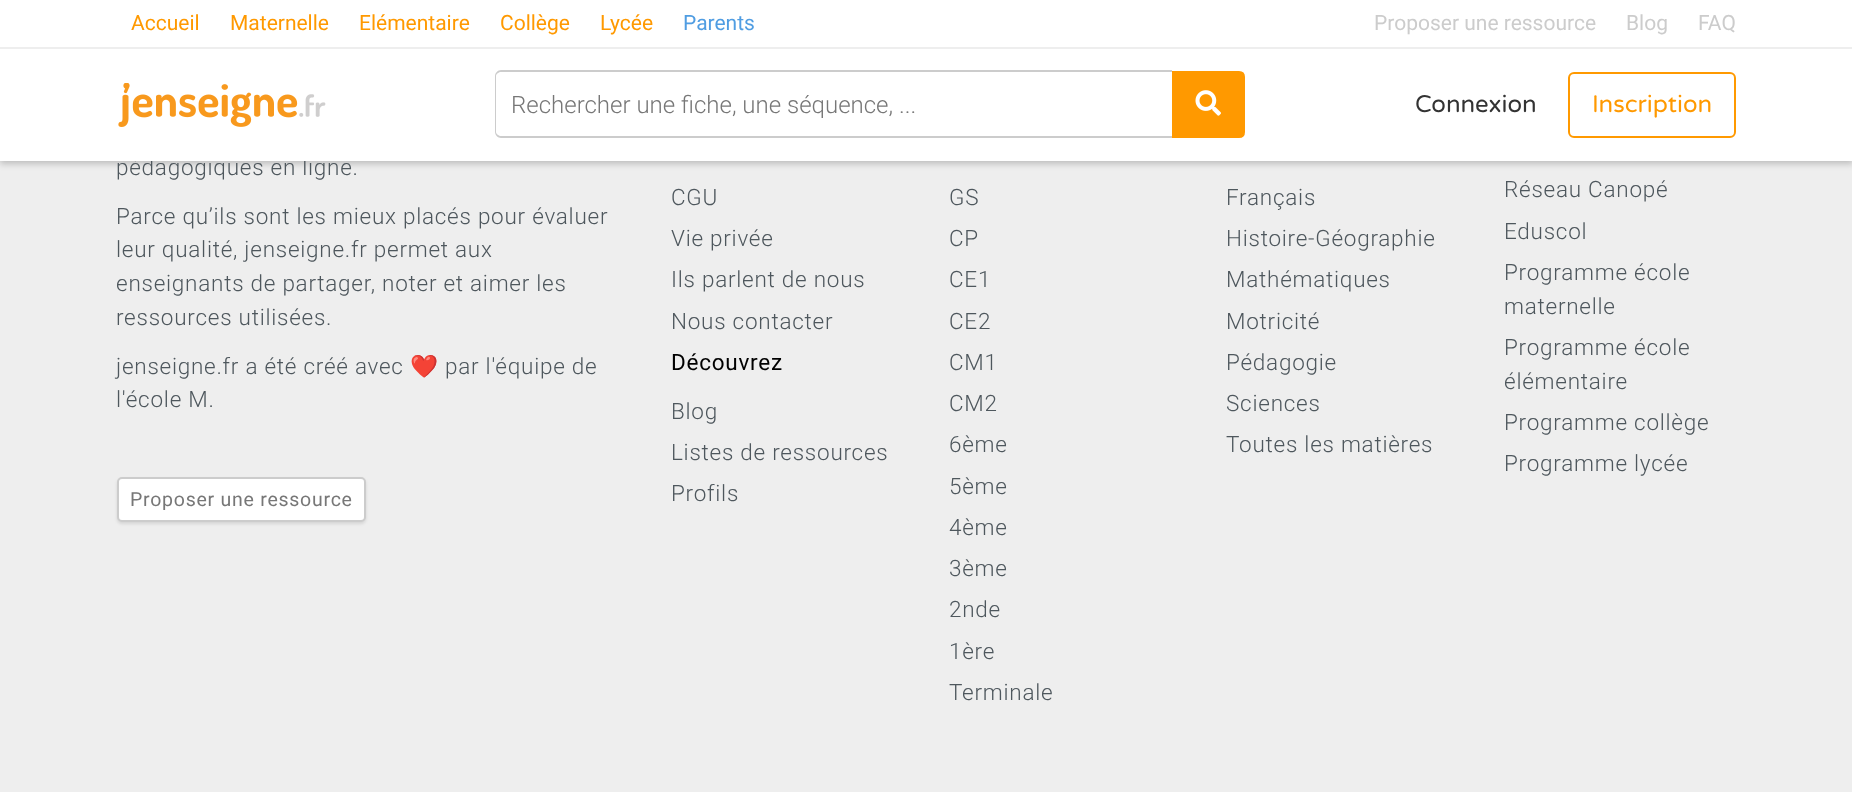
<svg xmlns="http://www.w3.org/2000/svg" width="1852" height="792">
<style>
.a{font:21px Roboto;fill:#f90}
.b{font:21px Roboto;fill:#509de2}
.c{font:21px Roboto;fill:#ccc}
.d{font:300 22.5px Roboto;letter-spacing:0.75px;fill:#4e575d}
.e{font:300 24px Roboto;fill:#777}
.f{font:24px Varela Round;fill:#f90}
.g{font:24px Varela Round;fill:#333}
.h{font:22.5px Noto Color Emoji;letter-spacing:0.75px;fill:#4e575d}
.i{font:19.5px Roboto;letter-spacing:0.75px;fill:#777}
.j{font:22.5px Roboto;letter-spacing:0.75px;fill:#000}
</style>
<rect width="100%" height="100%" fill="#eee"/>
<path fill="#00000033" filter="blur(3px)" d="M0 51h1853v113H0z"/>
<path fill="#fff" d="M0 0h1852v47H0z"/>
<path fill="#eee" d="M0 47h1852v2H0z"/>
<rect fill="#0000001a" filter="blur(1.5px)" x="117" y="479" width="249" height="45" rx="5"/>
<rect fill="#fff" stroke="#ccc" stroke-width="2" x="118" y="478" width="247" height="43" rx="4"/>
<text class="a" x="131" y="30">Accueil</text>
<text class="a" x="230" y="30">Maternelle</text>
<text class="a" x="359" y="30">Elémentaire</text>
<text class="a" x="500" y="30">Collège</text>
<text class="a" x="600" y="30">Lycée</text>
<text class="b" x="683" y="30">Parents</text>
<text class="c" x="1374" y="30">Proposer une ressource</text>
<text class="c" x="1626" y="30">Blog</text>
<text class="c" x="1698" y="30">FAQ</text>
<text class="d" x="116" y="175">pédagogiques en ligne.</text>
<path fill="#fff" d="M0 49h1852v112H0z"/>
<path fill="#f90" stroke="#f90" stroke-width="2" d="M1173 72h66c3 0 5 2 5 5v55c0 3-2 5-5 5h-66z"/>
<image href="2.png" x="1195" y="90" width="26" height="26"/>
<path fill="#ccc" fill-rule="evenodd" d="M501 70h671v68h-671c-3 0-6-3-6-6v-56c0-3 3-6 6-6zm0 2h671v64h-671c-2 0-5-2-5-4v-56c0-2 3-4 5-4z"/>
<text class="e" x="511" y="113">Rechercher une fiche, une séquence, ...</text>
<rect fill="none" stroke="#f90" stroke-width="2" x="1569" y="73" width="166" height="64" rx="5"/>
<text class="f" x="1592" y="112">Inscription</text>
<text class="g" x="1415" y="112">Connexion</text>
<image href="1.png" x="118" y="83" width="208" height="44"/>
<text class="d" x="116" y="224">Parce qu’ils sont les mieux placés pour évaluer</text>
<text class="d" x="116" y="257">leur qualité, jenseigne.fr permet aux</text>
<text class="d" x="116" y="291">enseignants de partager, noter et aimer les</text>
<text class="d" x="116" y="325">ressources utilisées.</text>
<text class="d" x="116" y="374">jenseigne.fr a été créé avec</text>
<text class="h" x="410" y="374">❤️</text>
<text class="d" x="445" y="374">par l'équipe de</text>
<text class="d" x="116" y="407">l'école M.</text>
<text class="i" x="130" y="506">Proposer une ressource</text>
<text class="d" x="671" y="205">CGU</text>
<text class="d" x="671" y="246">Vie privée</text>
<text class="d" x="671" y="287">Ils parlent de nous</text>
<text class="d" x="671" y="329">Nous contacter</text>
<text class="j" x="671" y="370">Découvrez</text>
<text class="d" x="671" y="419">Blog</text>
<text class="d" x="671" y="460">Listes de ressources</text>
<text class="d" x="671" y="501">Profils</text>
<text class="d" x="949" y="205">GS</text>
<text class="d" x="949" y="246">CP</text>
<text class="d" x="949" y="287">CE1</text>
<text class="d" x="949" y="329">CE2</text>
<text class="d" x="949" y="370">CM1</text>
<text class="d" x="949" y="411">CM2</text>
<text class="d" x="949" y="452">6ème</text>
<text class="d" x="949" y="494">5ème</text>
<text class="d" x="949" y="535">4ème</text>
<text class="d" x="949" y="576">3ème</text>
<text class="d" x="949" y="617">2nde</text>
<text class="d" x="949" y="659">1ère</text>
<text class="d" x="949" y="700">Terminale</text>
<text class="d" x="1226" y="205">Français</text>
<text class="d" x="1226" y="246">Histoire-Géographie</text>
<text class="d" x="1226" y="287">Mathématiques</text>
<text class="d" x="1226" y="329">Motricité</text>
<text class="d" x="1226" y="370">Pédagogie</text>
<text class="d" x="1226" y="411">Sciences</text>
<text class="d" x="1226" y="452">Toutes les matières</text>
<text class="d" x="1504" y="197">Réseau Canopé</text>
<text class="d" x="1504" y="239">Eduscol</text>
<text class="d" x="1504" y="280">Programme école</text>
<text class="d" x="1504" y="314">maternelle</text>
<text class="d" x="1504" y="355">Programme école</text>
<text class="d" x="1504" y="389">élémentaire</text>
<text class="d" x="1504" y="430">Programme collège</text>
<text class="d" x="1504" y="471">Programme lycée</text>
</svg>
